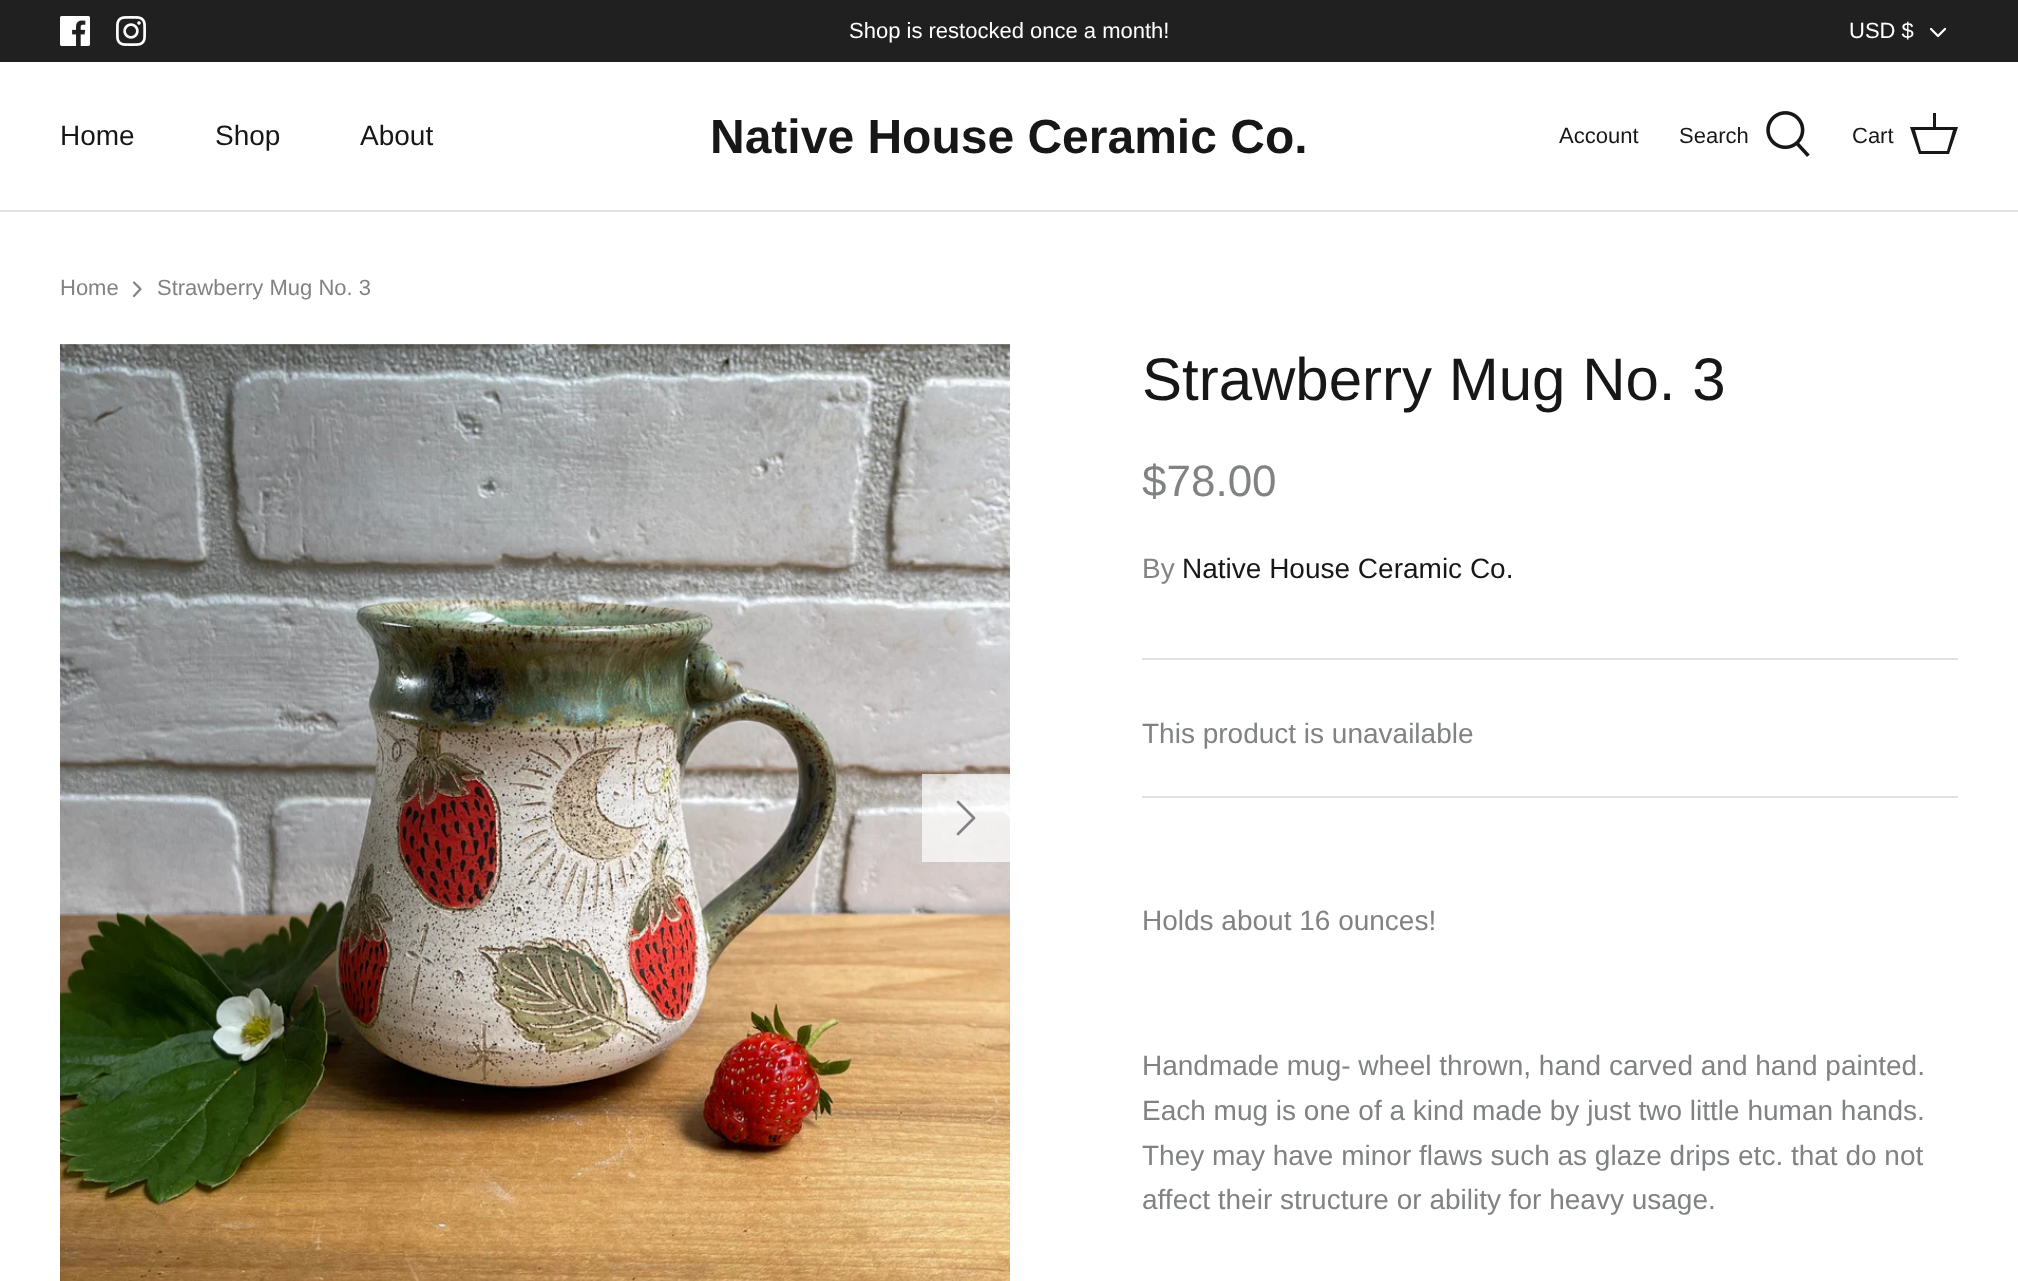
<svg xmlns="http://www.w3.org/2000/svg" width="2018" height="1281">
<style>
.a{font:22px Arimo;fill:#fff}
.b{font:28px Arimo;fill:#171717}
.c{font:bold 48px Arimo;fill:#171717}
.d{font:22px Arimo;fill:#171717}
.e{font:22px Arimo;fill:#808284}
.f{font:60px Arimo;fill:#171717}
.g{font:44px Arimo;fill:#808284}
.h{font:28px Arimo;fill:#808284}
</style>
<rect width="100%" height="100%" fill="#fff"/>
<path fill="#202020" d="M0 0h2018v62H0z"/>
<image href="1.png" x="60" y="16" width="30" height="30"/>
<image href="2.png" x="116" y="16" width="30" height="30"/>
<path fill="none" stroke="#fff" stroke-width="2.3" stroke-linecap="round" stroke-linejoin="round" d="M1931 29l7 7l7-7"/>
<path fill="#e2e2e2" d="M0 210h2018v2H0z"/>
<image href="3.png" x="1766" y="111" width="44" height="46"/>
<path fill="#171717" d="M1933 127v-14h3v14h22l-9 27h-30l-9-27zm-18 3l6 21h26l6-21z"/>
<path fill="none" stroke="#808284" stroke-width="2.2" stroke-linecap="round" stroke-linejoin="round" d="M134 296l6.5-7l-6.5-6.5"/>
<image href="4.png" x="60" y="344" width="950" height="937"/>
<path fill="#ffffffb3" d="M922 774h88v88H922z"/>
<path fill="none" stroke="#808284" stroke-width="2.7" stroke-linecap="round" stroke-linejoin="round" d="M958 834l16-16l-16-16"/>
<path fill="#e2e2e2" d="M1142 658h816v2H1142z"/>
<path fill="#e2e2e2" d="M1142 796h816v2H1142z"/>
<text class="a" x="849" y="38">Shop is restocked once a month!</text>
<text class="a" x="1849" y="38">USD $</text>
<text class="b" x="60" y="145">Home</text>
<text class="b" x="215" y="145">Shop</text>
<text class="b" x="360" y="145">About</text>
<text class="c" x="710" y="153">Native House Ceramic Co.</text>
<text class="d" x="1559" y="143">Account</text>
<text class="d" x="1679" y="143">Search</text>
<text class="d" x="1852" y="143">Cart</text>
<text class="e" x="60" y="295">Home</text>
<text class="e" x="157" y="295">Strawberry Mug No. 3</text>
<text class="f" x="1142" y="400">Strawberry Mug No. 3</text>
<text class="g" x="1142" y="496">$78.00</text>
<text class="h" x="1142" y="578">By</text>
<text class="b" x="1182" y="578">Native House Ceramic Co.</text>
<text class="h" x="1142" y="743">This product is unavailable</text>
<text class="h" x="1142" y="930">Holds about 16 ounces!</text>
<text class="h" x="1142" y="1075">Handmade mug- wheel thrown, hand carved and hand painted.</text>
<text class="h" x="1142" y="1120">Each mug is one of a kind made by just two little human hands.</text>
<text class="h" x="1142" y="1165">They may have minor flaws such as glaze drips etc. that do not</text>
<text class="h" x="1142" y="1209">affect their structure or ability for heavy usage.</text>
</svg>
